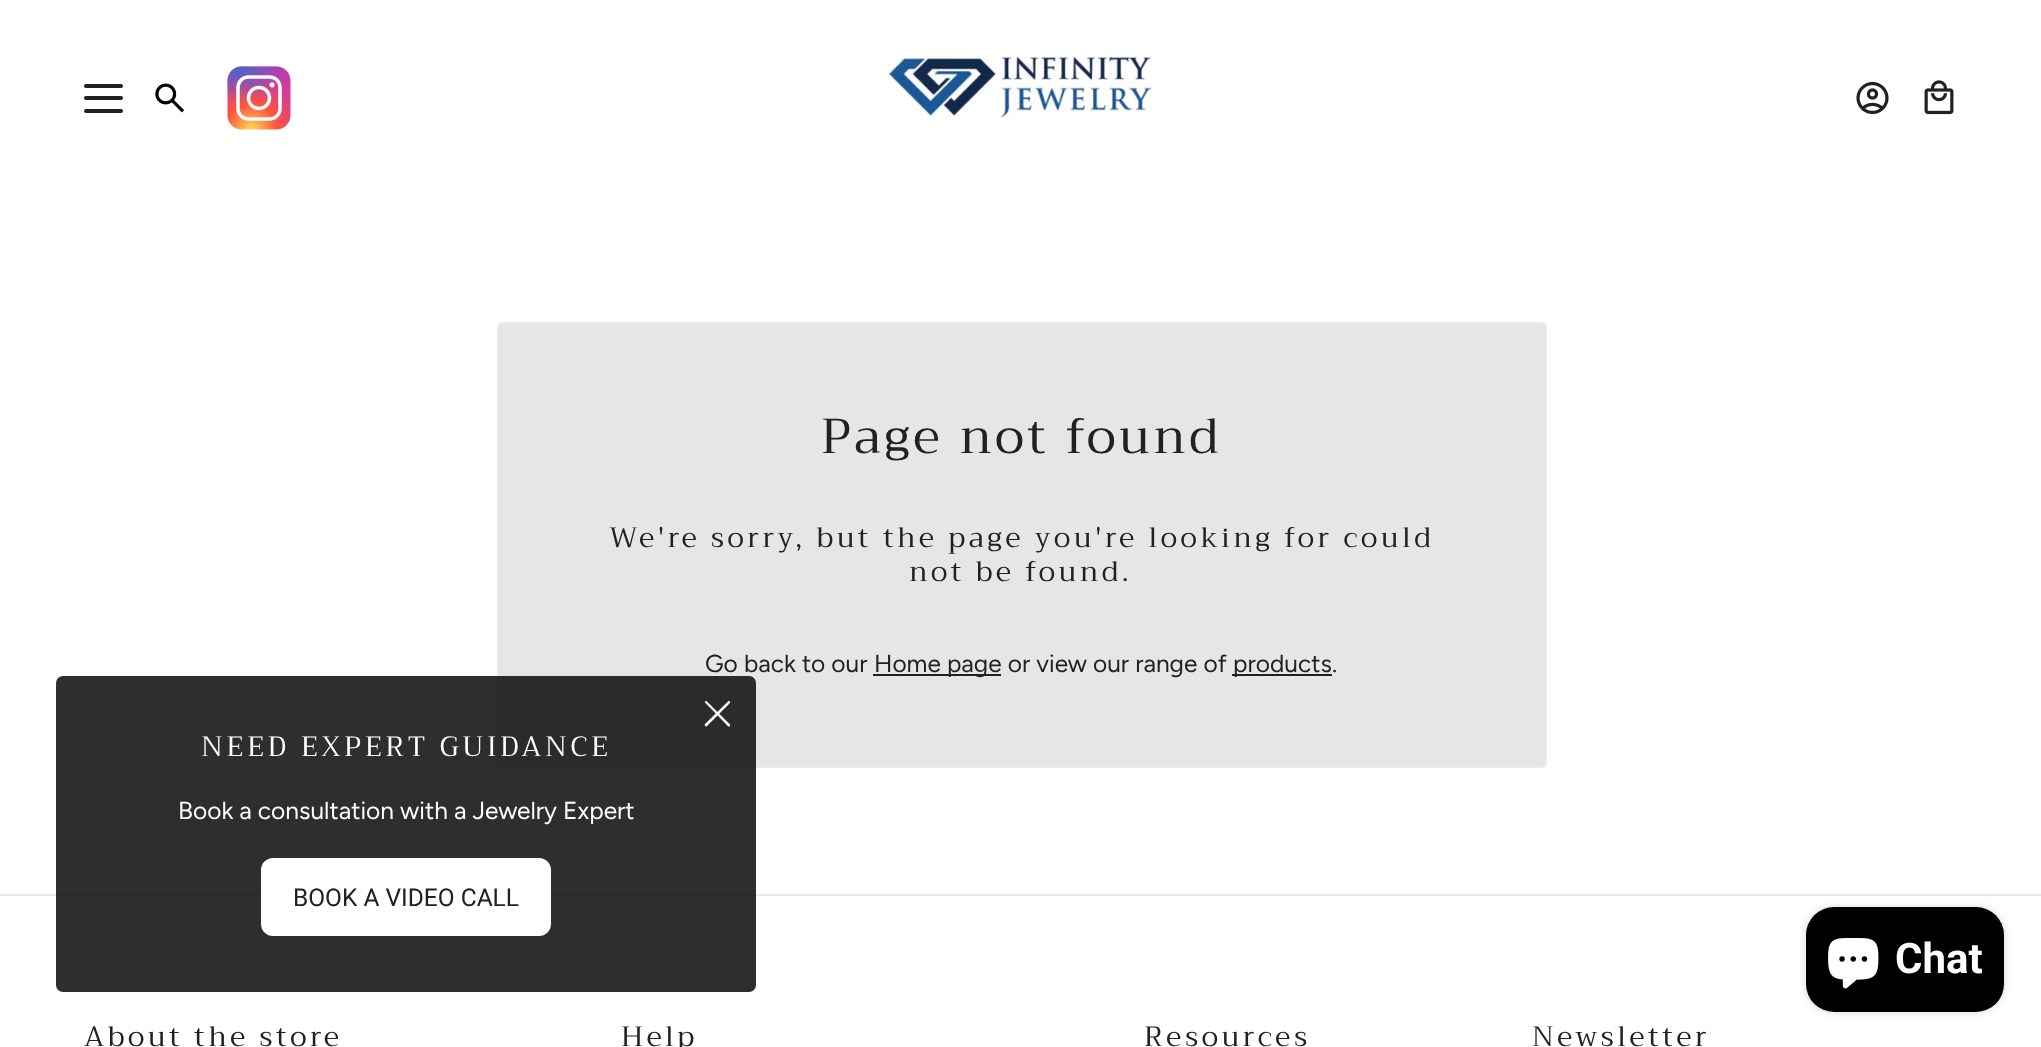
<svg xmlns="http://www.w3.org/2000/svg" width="2041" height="1047">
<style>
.a{font:49px Trirong;letter-spacing:3.5px;fill:#212121}
.b{font:28px Trirong;letter-spacing:3.5px;fill:#212121}
.c{font:24.5px Figtree;fill:#212121}
.d{font:28px Trirong;letter-spacing:3.5px;fill:#fff}
.e{font:24.5px Figtree;fill:#fff}
.f{font:24.5px Roboto;fill:#212121}
.g{font:bold 42px Roboto;fill:#fff}
</style>
<rect width="100%" height="100%" fill="#fff"/>
<rect fill="#212121" x="84" y="84" width="39" height="4" rx="2"/>
<rect fill="#212121" x="84" y="96" width="39" height="4" rx="2"/>
<rect fill="#212121" x="84" y="109" width="39" height="4" rx="2"/>
<image href="1.png" x="155" y="83" width="30" height="30"/>
<image href="2.png" x="227" y="66" width="64" height="64"/>
<image href="3.png" x="887" y="56" width="266" height="62"/>
<image href="4.png" x="1856" y="81" width="33" height="34"/>
<image href="5.png" x="1924" y="80" width="30" height="35"/>
<rect fill="#e6e6e6" stroke="#eaeaea" stroke-width="2" x="498" y="323" width="1048" height="444" rx="4"/>
<path fill="#212121" d="M873 674h128v2H873z"/>
<path fill="#212121" d="M1232 674h100v2H1232z"/>
<path fill="#e9e9e9" d="M0 894h2041v2H0z"/>
<rect fill="#090909d9" x="56" y="676" width="700" height="316" rx="7"/>
<path fill="#fff" d="M707 701.5l23 23v1.5c-1.5 2-3.5-1.5-6-4l-19-19.5c-.5-1 1-2 2-1z"/>
<path fill="#fff" d="M705 724l23.5-23h1c2 1.5-1.5 4-3.5 6l-19.5 19.5c-1 .5-2.5-1.5-1.5-2.5z"/>
<rect fill="#fff" stroke="#fff" stroke-width="4" x="263" y="860" width="286" height="74" rx="10"/>
<rect fill="#00000026" filter="blur(4.5px)" x="1806" y="907" width="198" height="105" rx="28"/>
<rect fill="#000" x="1806" y="907" width="198" height="105" rx="28"/>
<image href="6.png" x="1828" y="938" width="51" height="51"/>
<text class="a" x="821" y="453">Page not found</text>
<text class="b" x="609" y="547">We're sorry, but the page you're looking for could</text>
<text class="b" x="909" y="581">not be found.</text>
<text class="c" x="705" y="672">Go back to our</text>
<text class="c" x="874" y="672">Home page or view our range of</text>
<text class="c" x="1233" y="672">products.</text>
<text class="d" x="201" y="756">NEED EXPERT GUIDANCE</text>
<text class="e" x="178" y="819">Book a consultation with a Jewelry Expert</text>
<text class="f" x="293" y="906">BOOK A VIDEO CALL</text>
<text class="b" x="84" y="1046">About the store</text>
<text class="b" x="621" y="1046">Help</text>
<text class="b" x="1144" y="1046">Resources</text>
<text class="b" x="1532" y="1046">Newsletter</text>
<text class="g" x="1895" y="973">Chat</text>
</svg>
